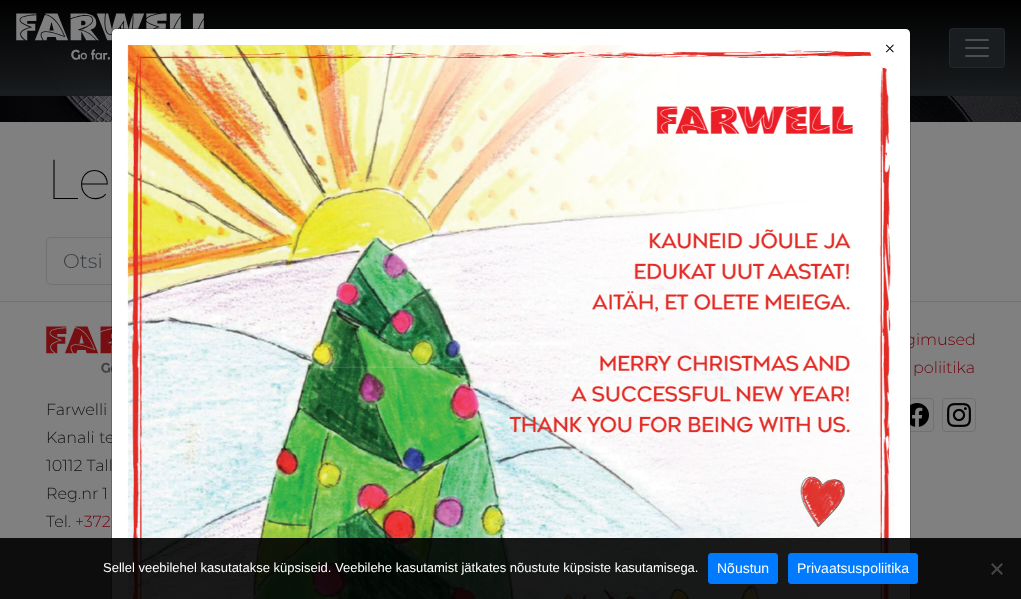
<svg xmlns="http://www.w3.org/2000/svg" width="1021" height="599">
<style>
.a{font:100 56px Montserrat;fill:#000}
.b{font:300 20px Montserrat;fill:#363b3f}
.c{font:300 16px Montserrat;fill:#71000d}
.d{font:300 16px Montserrat;fill:#111315}
.e{font:300 24px Montserrat;fill:#000}
.f{font:13px Liberation Sans;fill:#fff}
.g{font:14px Liberation Sans;fill:#fff}
</style>
<defs>
<linearGradient id="g1" gradientUnits="userSpaceOnUse" x1="511" y1="0" x2="511" y2="96"><stop offset="0" stop-color="#000"/><stop offset="0.8" stop-color="#000" stop-opacity="0.25"/><stop offset="1" stop-color="#000" stop-opacity="0"/></linearGradient>
</defs>
<rect width="100%" height="100%" fill="#808080"/>
<image href="1.png" x="0" y="1" width="1021" height="121"/>
<path fill="#1a1d20f2" d="M0 1h1021v95H0z"/>
<path fill="url(#g1)" d="M0 0h1021v90H0z"/>
<image href="2.png" x="16" y="13" width="188" height="47"/>
<rect fill="#1a1d20" x="949" y="28" width="56" height="40" rx="4"/>
<rect fill="none" stroke="#8080801a" x="949.5" y="28.5" width="55" height="39" rx="3.5"/>
<image href="3.png" x="965" y="39" width="24" height="18"/>
<path fill="none" stroke="#6f7173" d="M51 237.5h304.5v47h-304.5c-2.5 0-4.5-2-4.5-4.5v-38c0-2.5 2-4.5 4.5-4.5z"/>
<path fill="#6f7173" d="M0 301h1021v1H0z"/>
<rect fill="none" stroke="#6f7173" x="900.5" y="398.5" width="33" height="33" rx="3.5"/>
<image href="5.png" x="910" y="403" width="19" height="24"/>
<rect fill="none" stroke="#6f7173" x="942.5" y="398.5" width="33" height="33" rx="3.5"/>
<image href="6.png" x="947" y="403" width="24" height="24"/>
<image href="7.png" x="46" y="326" width="66" height="47"/>
<text class="a" x="46" y="199">Le</text>
<text class="b" x="63" y="268">Otsi</text>
<text class="c" x="905" y="345">gimused</text>
<text class="c" x="913" y="373">poliitika</text>
<text class="d" x="46" y="415">Farwelli</text>
<text class="d" x="46" y="443">Kanali te</text>
<path fill="#fff" d="M116 29h790c2 0 4 2 4 4v566h-798v-566c0-2 2-4 4-4z"/>
<rect fill="none" stroke="#00000033" x="111.5" y="28.5" width="799" height="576" rx="4.5"/>
<image href="4.png" x="127" y="45" width="767" height="554"/>
<circle fill="#fff" cx="890" cy="49" r="20"/>
<text class="e" x="883" y="57">×</text>
<text class="d" x="46" y="471">10112 Tall</text>
<text class="d" x="46" y="499">Reg.nr 1</text>
<text class="d" x="46" y="527">Tel.</text>
<text class="c" x="75" y="527">+372</text>
<path fill="#000000e6" d="M0 538h1021v61H0z"/>
<text class="f" x="103" y="572">Sellel veebilehel kasutatakse küpsiseid. Veebilehe kasutamist jätkates nõustute küpsiste kasutamisega.</text>
<rect fill="#007bff" stroke="#007bff" x="708.5" y="553.5" width="69" height="30" rx="2.5"/>
<text class="g" x="717" y="573">Nõustun</text>
<rect fill="#007bff" stroke="#007bff" x="788.5" y="553.5" width="129" height="30" rx="2.5"/>
<text class="g" x="797" y="573">Privaatsuspoliitika</text>
<path fill="#464646" d="M1001.5 563l1.5 1.5l-10.5 10.5l-1.5-1.5z"/>
<path fill="#464646" d="M991 564.5l1.5-1.5l10.5 10.5l-1.5 1.5z"/>
</svg>
